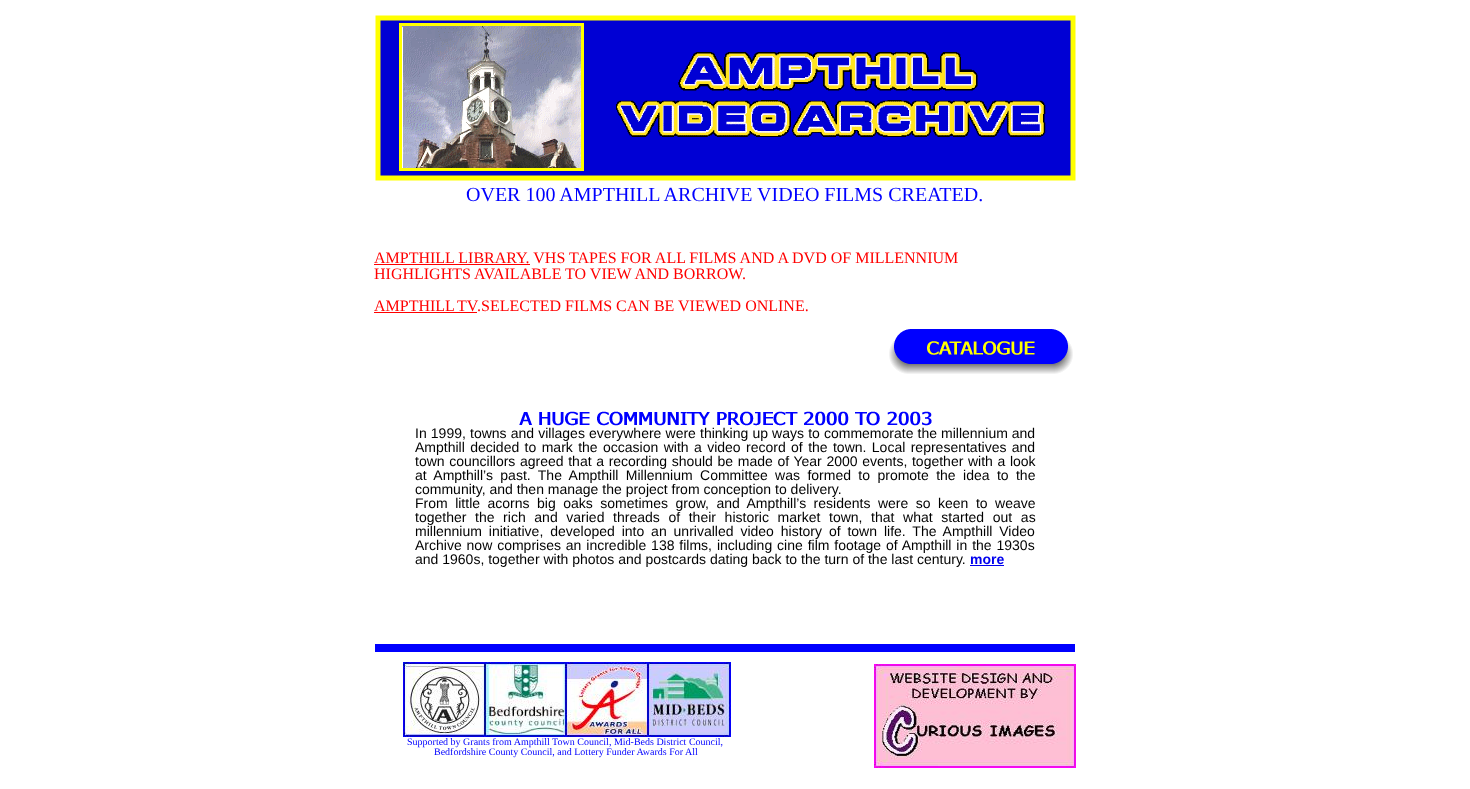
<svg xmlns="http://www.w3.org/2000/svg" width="1470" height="789">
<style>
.a{font:20px Liberation Serif;fill:#00f}
.b{font:16px Liberation Serif;fill:#f00}
.c{font:14px Liberation Sans;fill:#000}
.d{font:bold 14px Liberation Sans;fill:#00e}
.e{font:10px Liberation Serif;fill:#00f}
</style>
<rect width="100%" height="100%" fill="#fff"/>
<image href="1.png" x="375" y="15" width="701" height="166"/>
<path fill="#f00" d="M374 264h156v1H374z"/>
<path fill="#f00" d="M374 312h103v1H374z"/>
<image href="2.png" x="889" y="329" width="184" height="45"/>
<image href="3.png" x="519" y="411" width="413" height="15"/>
<path fill="#00e" d="M970 565h34v1H970z"/>
<path fill="#00f" d="M375 644h700v8H375z"/>
<image href="4.png" x="403" y="662" width="328" height="75"/>
<image href="5.png" x="874" y="664" width="202" height="104"/>
<text class="a" x="466" y="201">OVER 100 AMPTHILL ARCHIVE VIDEO FILMS CREATED.</text>
<text class="b" x="374" y="263">AMPTHILL LIBRARY. VHS TAPES FOR ALL FILMS AND A DVD OF MILLENNIUM</text>
<text class="b" x="374" y="279">HIGHLIGHTS AVAILABLE TO VIEW AND BORROW.</text>
<text class="b" x="374" y="311" word-spacing="-1">AMPTHILL TV</text>
<text class="b" x="477" y="311">.SELECTED FILMS CAN BE VIEWED ONLINE.</text>
<text class="c" x="415" y="438" word-spacing="0.25">In 1999, towns and villages everywhere were thinking up ways to commemorate the</text>
<text class="c" x="941" y="438">millennium and</text>
<text class="c" x="415" y="452" word-spacing="1.5">Ampthill decided to mark the occasion with a video record of the town. Local representatives and</text>
<text class="c" x="415" y="466" word-spacing="0.75">town councillors agreed that a recording should be made of Year 2000 events, together with a look</text>
<text class="c" x="415" y="480" word-spacing="3.5">at Ampthill’s past. The Ampthill Millennium Committee was formed to promote the idea to the</text>
<text class="c" x="415" y="494">community, and then manage the project from conception to delivery.</text>
<text class="c" x="415" y="508" word-spacing="3.6">From little acorns big oaks sometimes grow, and Ampthill’s residents were so keen to weave</text>
<text class="c" x="415" y="522" word-spacing="4.75">together the rich and varied threads of their historic market town, that what started out as</text>
<text class="c" x="415" y="536" word-spacing="3">millennium initiative, developed into an unrivalled video history of town life. The Ampthill Video</text>
<text class="c" x="415" y="550" word-spacing="1">Archive now comprises an incredible 138 films, including cine film footage of Ampthill in the 1930s</text>
<text class="c" x="415" y="564">and 1960s, together with photos and postcards dating back to the turn of the last century.</text>
<text class="d" x="970" y="564">more</text>
<text class="e" x="407" y="745">Supported by Grants from Ampthill Town Council, Mid-Beds District Council,</text>
<text class="e" x="434" y="755">Bedfordshire County Council, and Lottery Funder Awards For All</text>
</svg>
